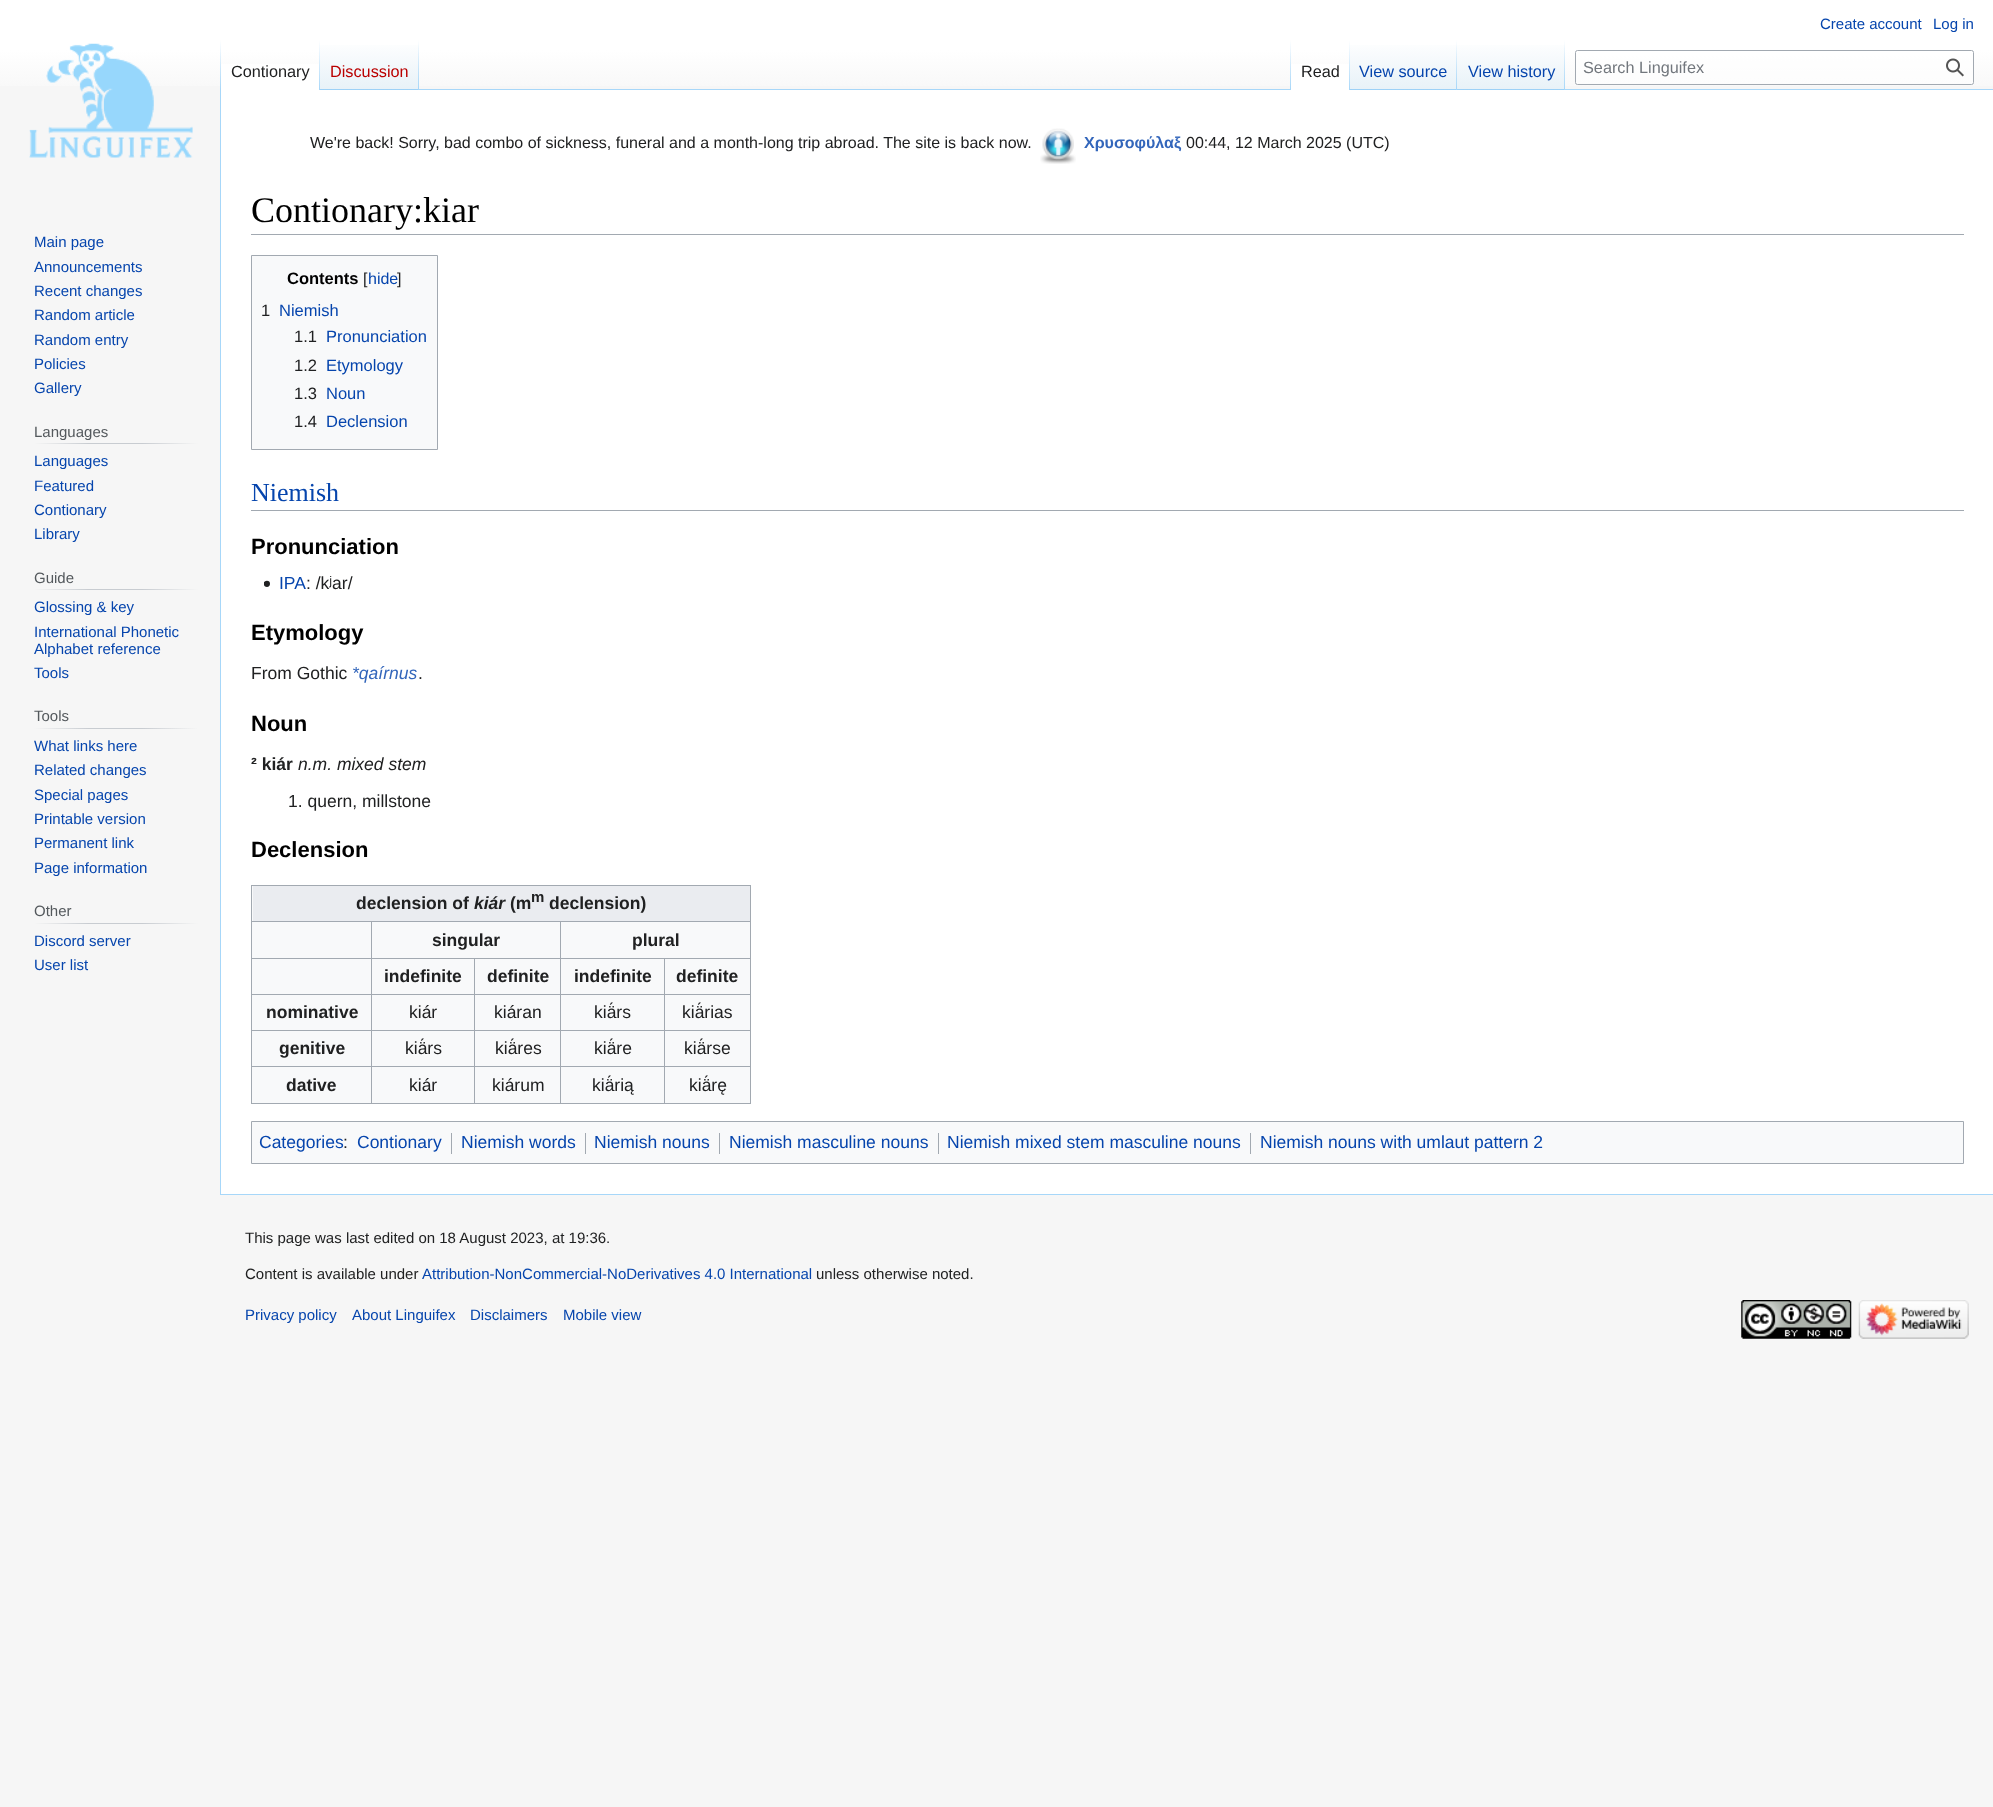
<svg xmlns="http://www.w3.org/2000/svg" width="1993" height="1807">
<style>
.a{font:15px Liberation Sans;fill:#0645ad}
.b{font:16.25px Liberation Sans;fill:#202122}
.c{font:16.25px Liberation Sans;fill:#ba0000}
.d{font:16.25px Liberation Sans;fill:#0645ad}
.e{font:16.25px Liberation Sans;fill:#72777d}
.f{font:15px Liberation Sans;fill:#54595d}
.g{font:16px Liberation Sans;fill:#202122}
.h{font:bold 16px Liberation Sans;fill:#36b}
.i{font:36px Liberation Serif;fill:#000}
.j{font:bold 16.5px Liberation Sans;fill:#000}
.k{font:16px Liberation Sans;fill:#0645ad}
.l{font:16.5px Liberation Sans;fill:#202122}
.m{font:16.5px Liberation Sans;fill:#0645ad}
.n{font:26px Liberation Serif;fill:#0645ad}
.o{font:bold 22px Liberation Sans;fill:#000}
.p{font:17.5px Liberation Sans;fill:#0645ad}
.q{font:17.5px Liberation Sans;fill:#202122}
.r{font:italic 17.5px Liberation Sans;fill:#36b}
.s{font:bold 17.5px Liberation Sans;fill:#202122}
.t{font:italic 17.5px Liberation Sans;fill:#202122}
.u{font:italic bold 17.5px Liberation Sans;fill:#202122}
.v{font:bold 15px Liberation Sans;fill:#202122}
.w{font:15px Liberation Sans;fill:#202122}
</style>
<defs>
<linearGradient id="g1" gradientUnits="userSpaceOnUse" x1="997" y1="0" x2="997" y2="100"><stop offset="0.5" stop-color="#fff"/><stop offset="1" stop-color="#f6f6f6"/></linearGradient>
<linearGradient id="g2" gradientUnits="userSpaceOnUse" x1="221" y1="40" x2="221" y2="90"><stop offset="0" stop-color="#a7d7f9" stop-opacity="0"/><stop offset="1" stop-color="#a7d7f9"/></linearGradient>
<linearGradient id="g3" gradientUnits="userSpaceOnUse" x1="319" y1="40" x2="319" y2="90"><stop offset="0" stop-color="#fff"/><stop offset="1" stop-color="#a7d7f9"/></linearGradient>
<linearGradient id="g4" gradientUnits="userSpaceOnUse" x1="369" y1="90" x2="369" y2="40"><stop offset="0" stop-color="#77c1f6"/><stop offset="0.03" stop-color="#e8f2f8"/><stop offset="1" stop-color="#fff"/></linearGradient>
<linearGradient id="g5" gradientUnits="userSpaceOnUse" x1="418" y1="40" x2="418" y2="90"><stop offset="0" stop-color="#a7d7f9" stop-opacity="0"/><stop offset="1" stop-color="#a7d7f9"/></linearGradient>
<linearGradient id="g6" gradientUnits="userSpaceOnUse" x1="1291" y1="40" x2="1291" y2="90"><stop offset="0" stop-color="#a7d7f9" stop-opacity="0"/><stop offset="1" stop-color="#a7d7f9"/></linearGradient>
<linearGradient id="g7" gradientUnits="userSpaceOnUse" x1="1349" y1="40" x2="1349" y2="90"><stop offset="0" stop-color="#fff"/><stop offset="1" stop-color="#a7d7f9"/></linearGradient>
<linearGradient id="g8" gradientUnits="userSpaceOnUse" x1="1404" y1="90" x2="1404" y2="40"><stop offset="0" stop-color="#77c1f6"/><stop offset="0.03" stop-color="#e8f2f8"/><stop offset="1" stop-color="#fff"/></linearGradient>
<linearGradient id="g9" gradientUnits="userSpaceOnUse" x1="1457" y1="40" x2="1457" y2="90"><stop offset="0" stop-color="#a7d7f9" stop-opacity="0"/><stop offset="1" stop-color="#a7d7f9"/></linearGradient>
<linearGradient id="g10" gradientUnits="userSpaceOnUse" x1="1511" y1="90" x2="1511" y2="40"><stop offset="0" stop-color="#77c1f6"/><stop offset="0.03" stop-color="#e8f2f8"/><stop offset="1" stop-color="#fff"/></linearGradient>
<linearGradient id="g11" gradientUnits="userSpaceOnUse" x1="1564" y1="40" x2="1564" y2="90"><stop offset="0" stop-color="#a7d7f9" stop-opacity="0"/><stop offset="1" stop-color="#a7d7f9"/></linearGradient>
<linearGradient id="g12" gradientUnits="userSpaceOnUse" x1="34" y1="443" x2="198" y2="443"><stop offset="0" stop-color="#f6f6f6"/><stop offset="0.33" stop-color="#c8ccd1"/><stop offset="0.66" stop-color="#c8ccd1"/><stop offset="1" stop-color="#f6f6f6"/></linearGradient>
<linearGradient id="g13" gradientUnits="userSpaceOnUse" x1="34" y1="589" x2="198" y2="589"><stop offset="0" stop-color="#f6f6f6"/><stop offset="0.33" stop-color="#c8ccd1"/><stop offset="0.66" stop-color="#c8ccd1"/><stop offset="1" stop-color="#f6f6f6"/></linearGradient>
<linearGradient id="g14" gradientUnits="userSpaceOnUse" x1="34" y1="728" x2="198" y2="728"><stop offset="0" stop-color="#f6f6f6"/><stop offset="0.33" stop-color="#c8ccd1"/><stop offset="0.66" stop-color="#c8ccd1"/><stop offset="1" stop-color="#f6f6f6"/></linearGradient>
<linearGradient id="g15" gradientUnits="userSpaceOnUse" x1="34" y1="923" x2="198" y2="923"><stop offset="0" stop-color="#f6f6f6"/><stop offset="0.33" stop-color="#c8ccd1"/><stop offset="0.66" stop-color="#c8ccd1"/><stop offset="1" stop-color="#f6f6f6"/></linearGradient>
</defs>
<rect width="100%" height="100%" fill="#f6f6f6"/>
<path fill="url(#g1)" d="M0 0h1993v86H0z"/>
<path fill="#a7d7f9" d="M220 1194h1773v1H220z"/>
<path fill="#a7d7f9" d="M220 89h1v1106H220z"/>
<path fill="url(#g2)" d="M220 40h1v50H220z"/>
<path fill="#fff" d="M221 64h98v26H221z"/>
<path fill="url(#g3)" d="M319 40h1v50H319z"/>
<path fill="url(#g4)" d="M320 45h99v45H320z"/>
<path fill="url(#g5)" d="M418 40h1v50H418z"/>
<path fill="#a7d7f9" d="M419 89h1574v1H419z"/>
<path fill="url(#g6)" d="M1290 40h1v50H1290z"/>
<path fill="#fff" d="M1291 64h58v26H1291z"/>
<path fill="url(#g7)" d="M1349 40h1v50H1349z"/>
<path fill="url(#g8)" d="M1350 45h108v45H1350z"/>
<path fill="url(#g9)" d="M1456 40h1v50H1456z"/>
<path fill="url(#g10)" d="M1458 45h107v45H1458z"/>
<path fill="url(#g11)" d="M1564 40h1v50H1564z"/>
<rect fill="#ffffff80" stroke="#a2a9b1" x="1575.5" y="50.5" width="398" height="34" rx="2"/>
<image href="1.png" x="1946" y="58" width="18" height="19"/>
<image href="2.png" x="29" y="43" width="164" height="115"/>
<path fill="url(#g12)" d="M34 443h164v1H34z"/>
<path fill="url(#g13)" d="M34 589h164v1H34z"/>
<path fill="url(#g14)" d="M34 728h164v1H34z"/>
<path fill="url(#g15)" d="M34 923h164v1H34z"/>
<path fill="#fff" d="M221 90h1772v1104H221z"/>
<image href="3.png" x="1040" y="128" width="36" height="36"/>
<path fill="#a2a9b1" d="M251 234h1713v1H251z"/>
<path fill="#f8f9fa" stroke="#a2a9b1" d="M251.5 255.5h186v194H251.5z"/>
<path fill="#a2a9b1" d="M251 510h1713v1H251z"/>
<image href="4.png" x="264" y="580" width="6" height="7"/>
<path fill="#f8f9fa" d="M252 886h498v217H252z"/>
<path fill="#a2a9b1" d="M251 885h500v1H251z"/>
<path fill="#a2a9b1" d="M750 885h1v219H750z"/>
<path fill="#a2a9b1" d="M251 1103h500v1H251z"/>
<path fill="#a2a9b1" d="M251 885h1v219H251z"/>
<path fill="#eaecf0" d="M253 886h497v35H253z"/>
<path fill="#a2a9b1" d="M560 921h191v1H560z"/>
<path fill="#a2a9b1" d="M664 958h87v1H664z"/>
<path fill="#a2a9b1" d="M664 994h87v1H664z"/>
<path fill="#a2a9b1" d="M664 1030h87v1H664z"/>
<path fill="#a2a9b1" d="M664 1066h87v1H664z"/>
<path fill="#a2a9b1" d="M664 1066h1v38H664z"/>
<path fill="#a2a9b1" d="M560 1066h105v1H560z"/>
<path fill="#a2a9b1" d="M664 1030h1v38H664z"/>
<path fill="#a2a9b1" d="M560 1030h105v1H560z"/>
<path fill="#a2a9b1" d="M664 994h1v37H664z"/>
<path fill="#a2a9b1" d="M560 994h105v1H560z"/>
<path fill="#a2a9b1" d="M664 958h1v37H664z"/>
<path fill="#a2a9b1" d="M560 958h105v1H560z"/>
<path fill="#a2a9b1" d="M560 1066h1v38H560z"/>
<path fill="#a2a9b1" d="M474 1066h87v1H474z"/>
<path fill="#a2a9b1" d="M560 1030h1v38H560z"/>
<path fill="#a2a9b1" d="M474 1030h87v1H474z"/>
<path fill="#a2a9b1" d="M560 994h1v37H560z"/>
<path fill="#a2a9b1" d="M474 994h87v1H474z"/>
<path fill="#a2a9b1" d="M560 958h1v37H560z"/>
<path fill="#a2a9b1" d="M474 958h87v1H474z"/>
<path fill="#a2a9b1" d="M560 921h1v38H560z"/>
<path fill="#a2a9b1" d="M371 921h190v1H371z"/>
<path fill="#a2a9b1" d="M474 1066h1v38H474z"/>
<path fill="#a2a9b1" d="M371 1066h104v1H371z"/>
<path fill="#a2a9b1" d="M474 1030h1v38H474z"/>
<path fill="#a2a9b1" d="M371 1030h104v1H371z"/>
<path fill="#a2a9b1" d="M474 994h1v37H474z"/>
<path fill="#a2a9b1" d="M371 994h104v1H371z"/>
<path fill="#a2a9b1" d="M474 958h1v37H474z"/>
<path fill="#a2a9b1" d="M371 958h104v1H371z"/>
<path fill="#a2a9b1" d="M371 1066h1v38H371z"/>
<path fill="#a2a9b1" d="M251 1066h122v1H251z"/>
<path fill="#a2a9b1" d="M371 1030h1v38H371z"/>
<path fill="#a2a9b1" d="M251 1030h122v1H251z"/>
<path fill="#a2a9b1" d="M371 994h1v37H371z"/>
<path fill="#a2a9b1" d="M251 994h122v1H251z"/>
<path fill="#a2a9b1" d="M371 958h1v37H371z"/>
<path fill="#a2a9b1" d="M251 958h122v1H251z"/>
<path fill="#a2a9b1" d="M371 921h1v38H371z"/>
<path fill="#a2a9b1" d="M251 921h122v1H251z"/>
<path fill="#f8f9fa" stroke="#a2a9b1" d="M251.5 1121.5h1712v42H251.5z"/>
<path fill="#a2a9b1" d="M451 1133h1v21H451z"/>
<path fill="#a2a9b1" d="M585 1133h1v21H585z"/>
<path fill="#a2a9b1" d="M719 1133h1v21H719z"/>
<path fill="#a2a9b1" d="M938 1133h1v21H938z"/>
<path fill="#a2a9b1" d="M1250 1133h1v21H1250z"/>
<image href="5.png" x="1741" y="1300" width="111" height="39"/>
<image href="6.png" x="1858" y="1300" width="111" height="39"/>
<text class="a" x="1820" y="29">Create account</text>
<text class="a" x="1933" y="29">Log in</text>
<text class="b" x="231" y="77">Contionary</text>
<text class="c" x="330" y="77">Discussion</text>
<text class="b" x="1301" y="77">Read</text>
<text class="d" x="1359" y="77">View source</text>
<text class="d" x="1468" y="77">View history</text>
<text class="e" x="1583" y="73">Search Linguifex</text>
<text class="a" x="34" y="247">Main page</text>
<text class="a" x="34" y="272">Announcements</text>
<text class="a" x="34" y="296">Recent changes</text>
<text class="a" x="34" y="320">Random article</text>
<text class="a" x="34" y="345">Random entry</text>
<text class="a" x="34" y="369">Policies</text>
<text class="a" x="34" y="393">Gallery</text>
<text class="f" x="34" y="437">Languages</text>
<text class="a" x="34" y="466">Languages</text>
<text class="a" x="34" y="491">Featured</text>
<text class="a" x="34" y="515">Contionary</text>
<text class="a" x="34" y="539">Library</text>
<text class="f" x="34" y="583">Guide</text>
<text class="a" x="34" y="612">Glossing &amp; key</text>
<text class="a" x="34" y="637">International Phonetic</text>
<text class="a" x="34" y="654">Alphabet reference</text>
<text class="a" x="34" y="678">Tools</text>
<text class="f" x="34" y="721">Tools</text>
<text class="a" x="34" y="751">What links here</text>
<text class="a" x="34" y="775">Related changes</text>
<text class="a" x="34" y="800">Special pages</text>
<text class="a" x="34" y="824">Printable version</text>
<text class="a" x="34" y="848">Permanent link</text>
<text class="a" x="34" y="873">Page information</text>
<text class="f" x="34" y="916">Other</text>
<text class="a" x="34" y="946">Discord server</text>
<text class="a" x="34" y="970">User list</text>
<text class="g" x="310" y="148">We're back! Sorry, bad combo of sickness, funeral and a month-long trip abroad. The site is back now.</text>
<text class="h" x="1084" y="148">Χρυσοφύλαξ</text>
<text class="g" x="1186" y="148">00:44, 12 March 2025 (UTC)</text>
<text class="i" x="251" y="222">Contionary:kiar</text>
<text class="j" x="287" y="284">Contents</text>
<text class="g" x="363" y="284">[</text>
<text class="k" x="368" y="284">hide</text>
<text class="g" x="397" y="284">]</text>
<text class="l" x="261" y="316">1</text>
<text class="m" x="279" y="316">Niemish</text>
<text class="l" x="294" y="342">1.1</text>
<text class="m" x="326" y="342">Pronunciation</text>
<text class="l" x="294" y="371">1.2</text>
<text class="m" x="326" y="371">Etymology</text>
<text class="l" x="294" y="399">1.3</text>
<text class="m" x="326" y="399">Noun</text>
<text class="l" x="294" y="427">1.4</text>
<text class="m" x="326" y="427">Declension</text>
<text class="n" x="251" y="501">Niemish</text>
<text class="o" x="251" y="554">Pronunciation</text>
<text class="p" x="279" y="589">IPA</text>
<text class="q" x="306" y="589">: /kʲar/</text>
<text class="o" x="251" y="640">Etymology</text>
<text class="q" x="251" y="679">From Gothic</text>
<text class="r" x="352" y="679">*qaírnus</text>
<text class="q" x="418" y="679">.</text>
<text class="o" x="251" y="731">Noun</text>
<text class="s" x="251" y="770">² kiár</text>
<text class="t" x="298" y="770">n.m. mixed stem</text>
<text class="q" x="288" y="807">1. quern, millstone</text>
<text class="o" x="251" y="857">Declension</text>
<text class="s" x="356" y="909">declension of</text>
<text class="u" x="474" y="909">kiár</text>
<text class="s" x="510" y="909">(m</text>
<text class="v" x="531" y="902">m</text>
<text class="s" x="549" y="909">declension)</text>
<text class="s" x="432" y="946">singular</text>
<text class="s" x="632" y="946">plural</text>
<text class="s" x="384" y="982">indefinite</text>
<text class="s" x="487" y="982">definite</text>
<text class="s" x="574" y="982">indefinite</text>
<text class="s" x="676" y="982">definite</text>
<text class="s" x="266" y="1018">nominative</text>
<text class="q" x="409" y="1018">kiár</text>
<text class="q" x="494" y="1018">kiáran</text>
<text class="q" x="594" y="1018">kiä́rs</text>
<text class="q" x="682" y="1018">kiä́rias</text>
<text class="s" x="279" y="1054">genitive</text>
<text class="q" x="405" y="1054">kiä́rs</text>
<text class="q" x="495" y="1054">kiä́res</text>
<text class="q" x="594" y="1054">kiä́re</text>
<text class="q" x="684" y="1054">kiä́rse</text>
<text class="s" x="286" y="1091">dative</text>
<text class="q" x="409" y="1091">kiár</text>
<text class="q" x="492" y="1091">kiárum</text>
<text class="q" x="592" y="1091">kiä́rią</text>
<text class="q" x="689" y="1091">kiä́rę</text>
<text class="p" x="259" y="1148">Categories</text>
<text class="q" x="343" y="1148">:</text>
<text class="p" x="357" y="1148">Contionary</text>
<text class="p" x="461" y="1148">Niemish words</text>
<text class="p" x="594" y="1148">Niemish nouns</text>
<text class="p" x="729" y="1148">Niemish masculine nouns</text>
<text class="p" x="947" y="1148">Niemish mixed stem masculine nouns</text>
<text class="p" x="1260" y="1148">Niemish nouns with umlaut pattern 2</text>
<text class="w" x="245" y="1243">This page was last edited on 18 August 2023, at 19:36.</text>
<text class="w" x="245" y="1279">Content is available under</text>
<text class="a" x="422" y="1279">Attribution-NonCommercial-NoDerivatives 4.0 International</text>
<text class="w" x="816" y="1279">unless otherwise noted.</text>
<text class="a" x="245" y="1320">Privacy policy</text>
<text class="a" x="352" y="1320">About Linguifex</text>
<text class="a" x="470" y="1320">Disclaimers</text>
<text class="a" x="563" y="1320">Mobile view</text>
</svg>
